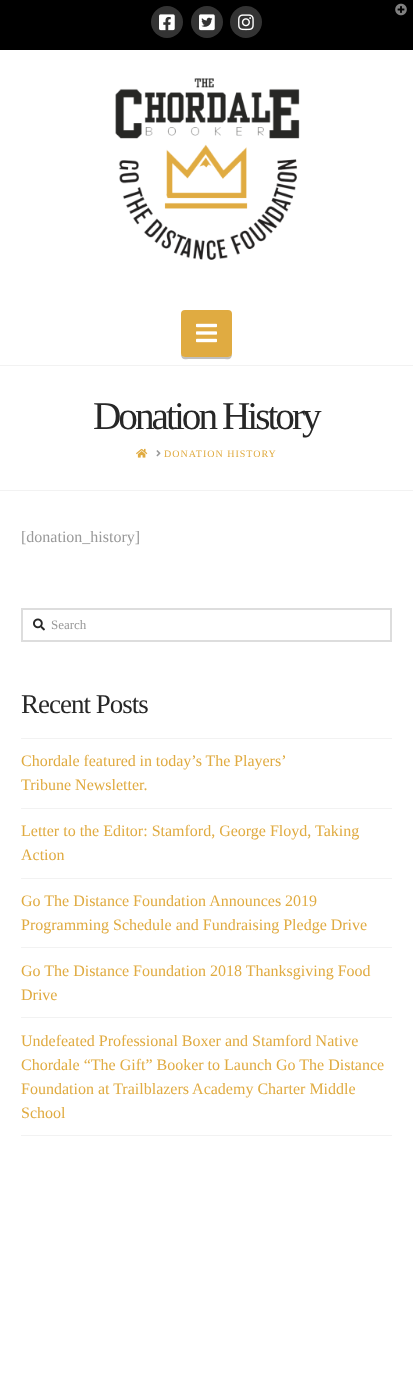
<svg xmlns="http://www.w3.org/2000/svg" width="413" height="1391">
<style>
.a{font:39.25px Liberation Serif;letter-spacing:-3px;fill:#272727}
.b{font:10px Liberation Serif;letter-spacing:1px;fill:#e0ab41}
.c{font:16px Liberation Serif;fill:#999}
.d{font:13px Liberation Serif;fill:#999}
.e{font:27px Liberation Serif;letter-spacing:-1px;fill:#272727}
.f{font:16px Liberation Serif;fill:#e0ab41}
</style>
<rect width="100%" height="100%" fill="#fff"/>
<path fill="#000" d="M0 0h413v50H0z"/>
<image href="1.png" x="395" y="3" width="12" height="13"/>
<circle fill="#333" cx="167" cy="22" r="16"/>
<image href="2.png" x="159" y="14" width="16" height="17"/>
<circle fill="#333" cx="207" cy="22" r="16"/>
<image href="3.png" x="199" y="14" width="16" height="17"/>
<circle fill="#333" cx="246" cy="22" r="16"/>
<image href="4.png" x="238" y="14" width="16" height="17"/>
<image href="5.png" x="115" y="78" width="185" height="182"/>
<path fill="#bfbfbf" d="M181 353c0 8 4 6 11 6h29c7 0 11 2 11-6c0 2-2 4-4 4h-43c-2 0-4-2-4-4z"/>
<rect fill="#e0ab41" x="181" y="310" width="51" height="47" rx="4"/>
<image href="6.png" x="196" y="323" width="21" height="20"/>
<path fill="#f2f2f2" d="M0 365h413v1H0z"/>
<path fill="#f2f2f2" d="M0 490h413v1H0z"/>
<image href="7.png" x="136" y="448" width="12" height="10"/>
<image href="8.png" x="156" y="450" width="5" height="7"/>
<path fill="none" stroke="#ddd" stroke-width="2" d="M22 609h369v32H22z"/>
<image href="9.png" x="33" y="618" width="12" height="13"/>
<path fill="#f2f2f2" d="M21 738h371v1H21z"/>
<path fill="#f2f2f2" d="M21 808h371v1H21z"/>
<path fill="#f2f2f2" d="M21 878h371v1H21z"/>
<path fill="#f2f2f2" d="M21 947h371v1H21z"/>
<path fill="#f2f2f2" d="M21 1017h371v1H21z"/>
<path fill="#f2f2f2" d="M21 1135h371v1H21z"/>
<text class="a" x="93" y="429">Donation History</text>
<text class="b" x="164" y="457">DONATION HISTORY</text>
<text class="c" x="21" y="542">[donation_history]</text>
<text class="d" x="51" y="629">Search</text>
<text class="e" x="21" y="713">Recent Posts</text>
<text class="f" x="21" y="766" word-spacing="-0.25">Chordale featured in today’s The Players’</text>
<text class="f" x="21" y="790">Tribune Newsletter.</text>
<text class="f" x="21" y="836">Letter to the Editor: Stamford, George Floyd, Taking</text>
<text class="f" x="21" y="860">Action</text>
<text class="f" x="21" y="906">Go The Distance Foundation Announces 2019</text>
<text class="f" x="21" y="930">Programming Schedule and Fundraising Pledge Drive</text>
<text class="f" x="21" y="976">Go The Distance Foundation 2018 Thanksgiving Food</text>
<text class="f" x="21" y="1000">Drive</text>
<text class="f" x="21" y="1046">Undefeated Professional Boxer and Stamford Native</text>
<text class="f" x="21" y="1070">Chordale “The Gift” Booker to Launch Go The Distance</text>
<text class="f" x="21" y="1094">Foundation at Trailblazers Academy Charter Middle</text>
<text class="f" x="21" y="1118">School</text>
</svg>
